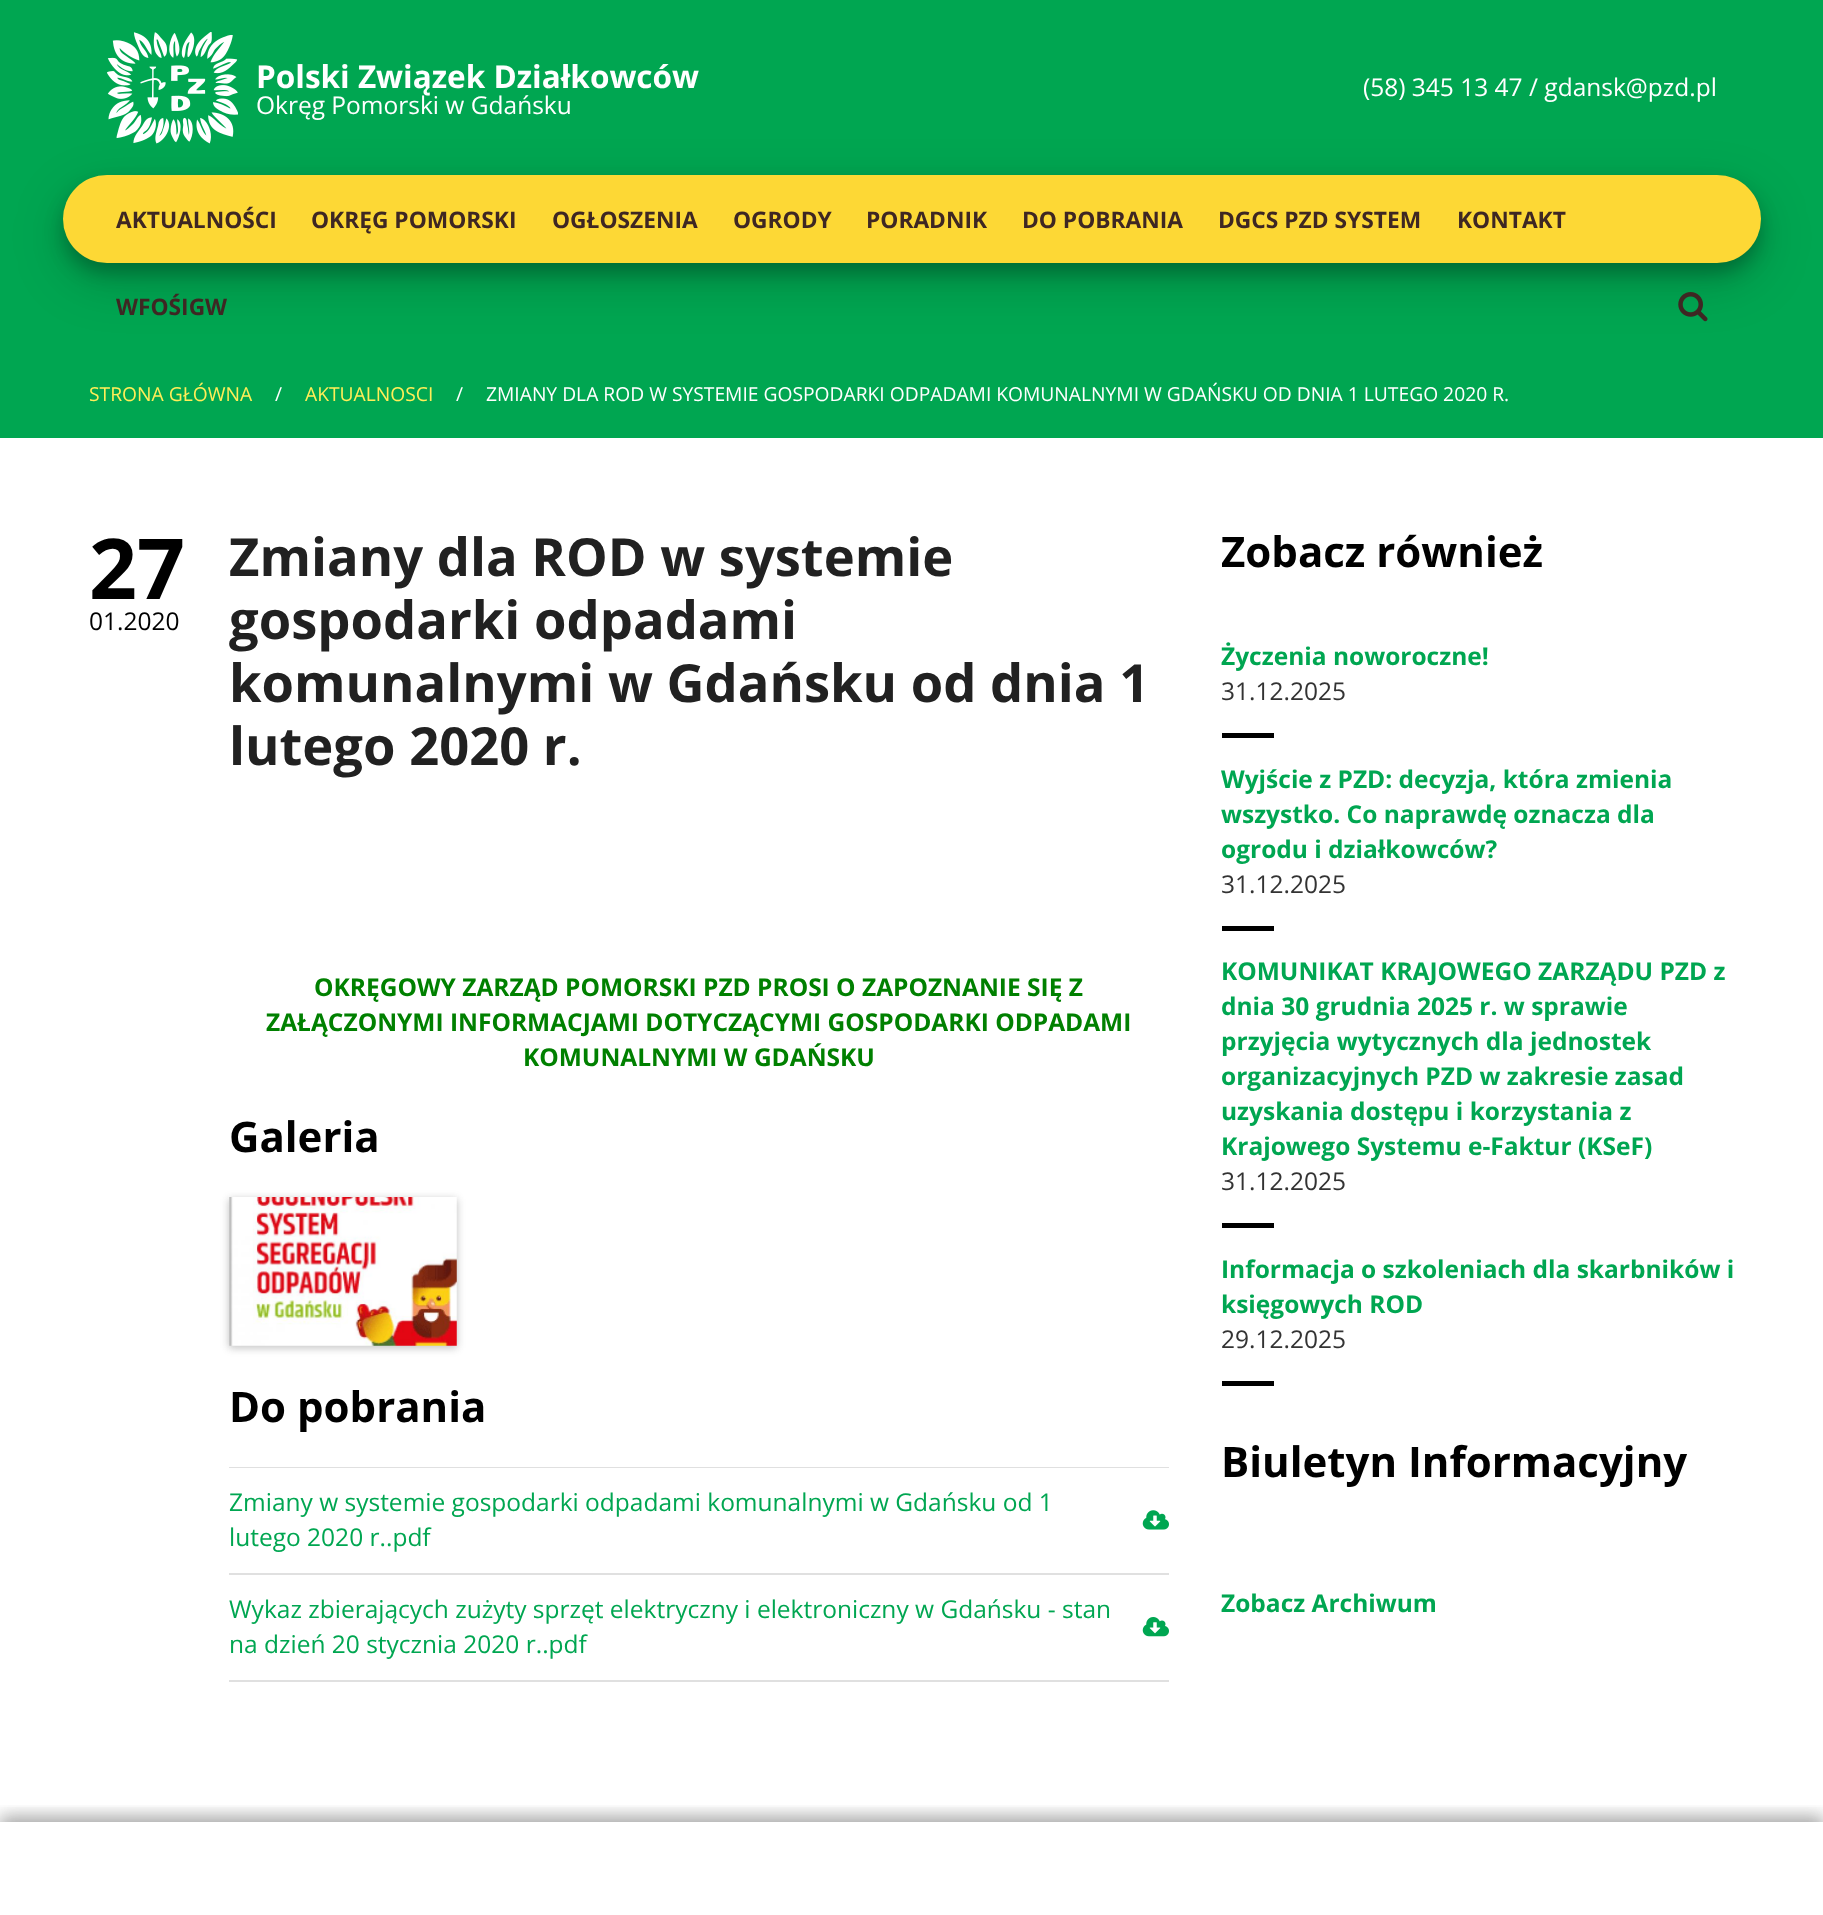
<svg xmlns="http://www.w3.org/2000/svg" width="1823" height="1915">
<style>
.a{font:bold 31.5px Open Sans;fill:#fff}
.b{font:24.5px Open Sans;fill:#fff}
.c{font:bold 22.75px Open Sans;fill:#3e2723}
.d{font:19.25px Open Sans;fill:#ffee58}
.e{font:19.25px Open Sans;fill:#fff}
.f{font:bold 84px Open Sans;fill:#000}
.g{font:24.5px Open Sans;fill:#000}
.h{font:bold 52.5px Open Sans;fill:#212121}
.i{font:bold 24.5px Open Sans;fill:#008000}
.j{font:bold 42px Open Sans;fill:#000}
.k{font:24.5px Open Sans;fill:#00a651}
.l{font:bold 24.5px Open Sans;fill:#00a651}
.m{font:24.5px Open Sans;fill:#333}
</style>
<defs>
<clipPath id="clip1"><path d="M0 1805h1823v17H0z"/></clipPath>
<clipPath id="clip2"><path d="M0 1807h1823v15H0z"/></clipPath>
</defs>
<rect width="100%" height="100%" fill="#fff"/>
<path fill="#00a651" d="M0 0h1823v438H0z"/>
<rect fill="#00000030" filter="blur(26px)" x="63" y="193" width="1698" height="87" rx="43.5"/>
<image href="1.png" x="107" y="32" width="131" height="112"/>
<rect fill="#0000003b" filter="blur(9px)" x="63" y="186" width="1698" height="87" rx="43.5"/>
<rect fill="#fdd835" x="63" y="175" width="1698" height="88" rx="44"/>
<image href="2.png" x="1678" y="292" width="30" height="30"/>
<path fill="#0000001f" filter="blur(5px)" d="M229 1199h228v149H229z"/>
<path fill="#0000001f" filter="blur(3.5px)" d="M229 1199h228v149H229z"/>
<image href="3.png" x="229" y="1197" width="228" height="149"/>
<path fill="#e0e0e0" d="M229 1467v106v-105h940v-1z"/>
<path fill="#e0e0e0" d="M229 1573h940v2H229z"/>
<image href="4.png" x="1142" y="1510" width="27" height="20"/>
<path fill="#e0e0e0" d="M229 1680h940v2H229z"/>
<image href="5.png" x="1142" y="1617" width="27" height="20"/>
<path fill="#000" d="M1222 733h52v5H1222z"/>
<path fill="#000" d="M1222 926h52v5H1222z"/>
<path fill="#000" d="M1222 1223h52v5H1222z"/>
<path fill="#000" d="M1222 1381h52v5H1222z"/>
<g clip-path="url(#clip1)">
<path fill="#0000003b" filter="blur(9px)" d="M0 1817h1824v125H0z"/>
</g>
<g clip-path="url(#clip2)">
<path fill="#00000029" filter="blur(9px)" d="M0 1817h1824v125H0z"/>
</g>
<text class="a" x="256" y="88">Polski Związek Działkowców</text>
<text class="b" x="256" y="114">Okręg Pomorski w Gdańsku</text>
<text class="b" x="1363" y="96">(58) 345 13 47 / gdansk@pzd.pl</text>
<text class="c" x="116" y="228">AKTUALNOŚCI</text>
<text class="c" x="311" y="228">OKRĘG POMORSKI</text>
<text class="c" x="552" y="228">OGŁOSZENIA</text>
<text class="c" x="733" y="228">OGRODY</text>
<text class="c" x="866" y="228">PORADNIK</text>
<text class="c" x="1022" y="228">DO POBRANIA</text>
<text class="c" x="1218" y="228">DGCS PZD SYSTEM</text>
<text class="c" x="1457" y="228">KONTAKT</text>
<text class="c" x="116" y="315">WFOŚIGW</text>
<text class="d" x="89" y="401">STRONA GŁÓWNA</text>
<text class="e" x="275" y="401">/</text>
<text class="d" x="305" y="401">AKTUALNOSCI</text>
<text class="e" x="456" y="401">/</text>
<text class="e" x="486" y="401">ZMIANY DLA ROD W SYSTEMIE GOSPODARKI ODPADAMI KOMUNALNYMI W GDAŃSKU OD DNIA 1 LUTEGO 2020 R.</text>
<text class="f" x="89" y="599">27</text>
<text class="g" x="89" y="630">01.2020</text>
<text class="h" x="229" y="576">Zmiany dla ROD w systemie</text>
<text class="h" x="229" y="639">gospodarki odpadami</text>
<text class="h" x="229" y="702">komunalnymi w Gdańsku od dnia 1</text>
<text class="h" x="229" y="765">lutego 2020 r.</text>
<text class="i" x="314" y="996">OKRĘGOWY ZARZĄD POMORSKI PZD PROSI O ZAPOZNANIE SIĘ Z</text>
<text class="i" x="266" y="1031">ZAŁĄCZONYMI INFORMACJAMI DOTYCZĄCYMI GOSPODARKI ODPADAMI</text>
<text class="i" x="523" y="1066">KOMUNALNYMI W GDAŃSKU</text>
<text class="j" x="229" y="1152">Galeria</text>
<text class="j" x="229" y="1422">Do pobrania</text>
<text class="k" x="229" y="1511">Zmiany w systemie gospodarki odpadami komunalnymi w Gdańsku od 1</text>
<text class="k" x="229" y="1546">lutego 2020 r..pdf</text>
<text class="k" x="229" y="1618">Wykaz zbierających zużyty sprzęt elektryczny i elektroniczny w Gdańsku - stan</text>
<text class="k" x="229" y="1653">na dzień 20 stycznia 2020 r..pdf</text>
<text class="j" x="1221" y="567">Zobacz również</text>
<text class="l" x="1221" y="665">Życzenia noworoczne!</text>
<text class="m" x="1221" y="700">31.12.2025</text>
<text class="l" x="1221" y="788">Wyjście z PZD: decyzja, która zmienia</text>
<text class="l" x="1221" y="823">wszystko. Co naprawdę oznacza dla</text>
<text class="l" x="1221" y="858">ogrodu i działkowców?</text>
<text class="m" x="1221" y="893">31.12.2025</text>
<text class="l" x="1221" y="980">KOMUNIKAT KRAJOWEGO ZARZĄDU PZD z</text>
<text class="l" x="1221" y="1015">dnia 30 grudnia 2025 r. w sprawie</text>
<text class="l" x="1221" y="1050">przyjęcia wytycznych dla jednostek</text>
<text class="l" x="1221" y="1085">organizacyjnych PZD w zakresie zasad</text>
<text class="l" x="1221" y="1120">uzyskania dostępu i korzystania z</text>
<text class="l" x="1221" y="1155">Krajowego Systemu e-Faktur (KSeF)</text>
<text class="m" x="1221" y="1190">31.12.2025</text>
<text class="l" x="1221" y="1278">Informacja o szkoleniach dla skarbników i</text>
<text class="l" x="1221" y="1313">księgowych ROD</text>
<text class="m" x="1221" y="1348">29.12.2025</text>
<text class="j" x="1221" y="1477">Biuletyn Informacyjny</text>
<text class="l" x="1221" y="1612">Zobacz Archiwum</text>
</svg>
